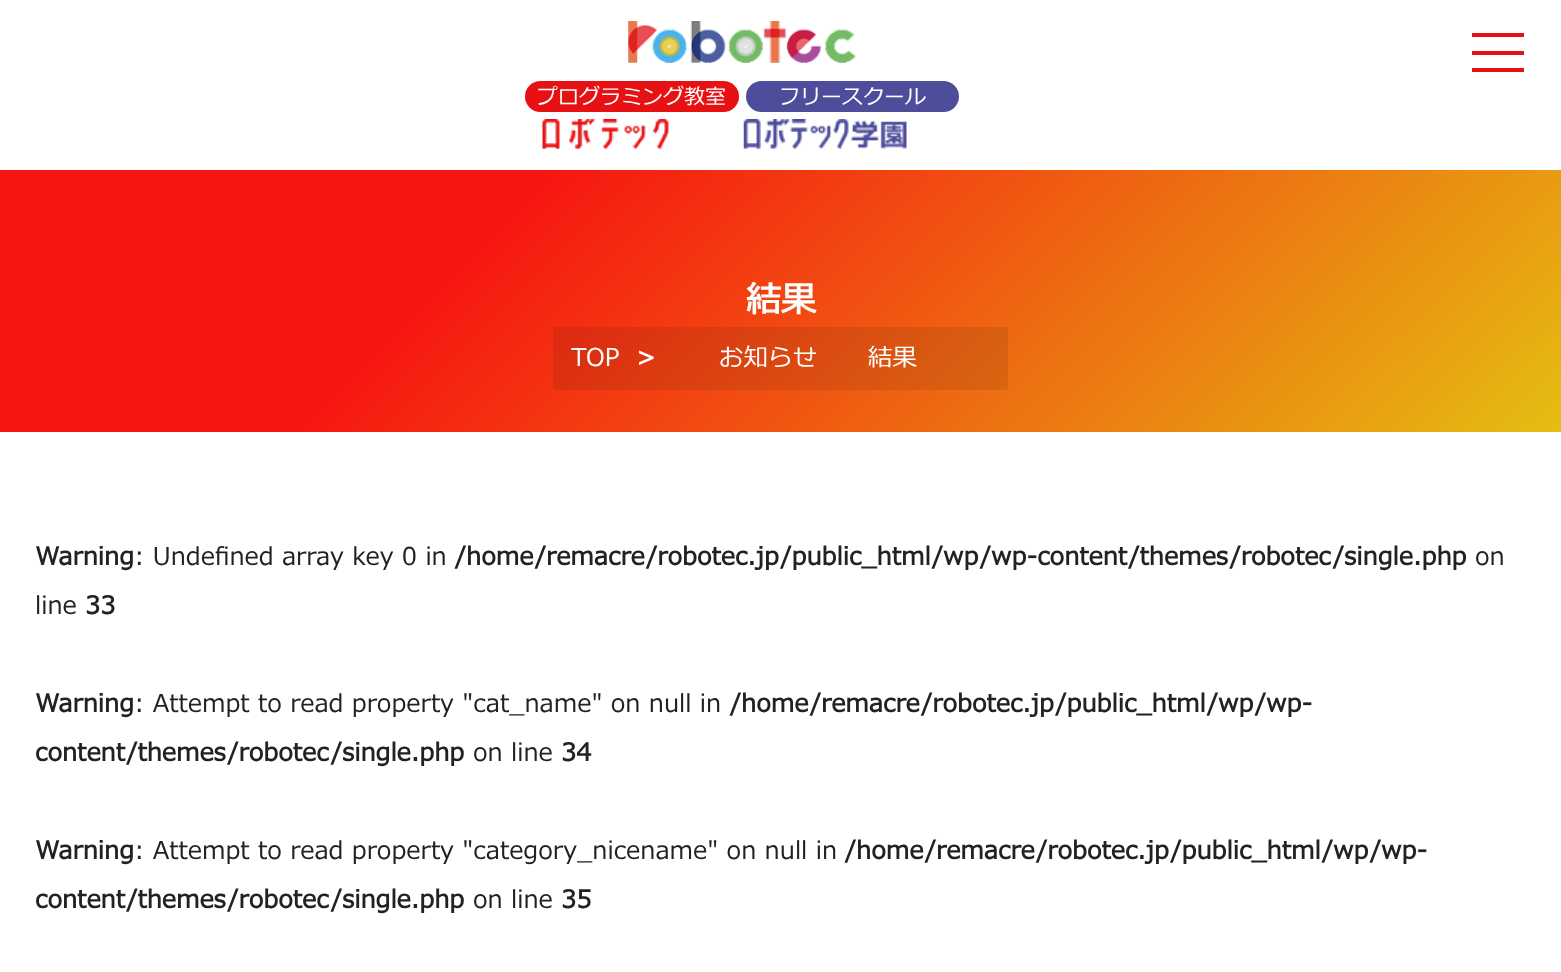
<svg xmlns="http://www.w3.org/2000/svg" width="1561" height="972">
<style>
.a{font:21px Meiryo;fill:#fff}
.b{font:bold 35px Meiryo;fill:#fff}
.c{font:24.5px Meiryo;fill:#fff}
.d{font:bold 24.5px Meiryo;fill:#fff}
.e{font:bold 24.5px Meiryo;fill:#222}
.f{font:24.5px Meiryo;fill:#222}
</style>
<defs>
<linearGradient id="g1" gradientUnits="userSpaceOnUse" x1="325" y1="-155" x2="1236" y2="757"><stop offset="0.3" stop-color="#f71511"/><stop offset="1" stop-color="#e5be12"/></linearGradient>
<linearGradient id="g2" gradientUnits="userSpaceOnUse" x1="325" y1="-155" x2="1236" y2="757"><stop offset="0.3" stop-color="#e01511"/><stop offset="1" stop-color="#d0ad12"/></linearGradient>
</defs>
<rect width="100%" height="100%" fill="#fff"/>
<path fill="#e71012" d="M1472 33h52v4H1472z"/>
<path fill="#e71012" d="M1472 51h52v4H1472z"/>
<path fill="#e71012" d="M1472 68h52v4H1472z"/>
<image href="1.png" x="628" y="21" width="228" height="42"/>
<rect fill="#e71012" x="525" y="81" width="214" height="31" rx="15.5"/>
<image href="2.png" x="542" y="119" width="127" height="30"/>
<rect fill="#4e4d9c" x="746" y="81" width="213" height="31" rx="15.5"/>
<image href="3.png" x="743" y="119" width="164" height="30"/>
<path fill="url(#g1)" d="M0 170h1561v262H0z"/>
<path fill="url(#g2)" d="M553 327h455v63H553z"/>
<text class="a" x="537" y="104">プログラミング教室</text>
<text class="a" x="779" y="104">フリースクール</text>
<text class="b" x="746" y="312">結果</text>
<text class="c" x="571" y="366">TOP</text>
<text class="d" x="636" y="366">&gt;</text>
<text class="c" x="719" y="366">お知らせ</text>
<text class="c" x="868" y="366">結果</text>
<text class="e" x="35" y="565">Warning</text>
<text class="f" x="134" y="565">: Undefined array key 0 in</text>
<text class="e" x="455" y="565">/home/remacre/robotec.jp/public_html/wp/wp-content/themes/robotec/single.php</text>
<text class="f" x="1475" y="565">on</text>
<text class="f" x="35" y="614">line</text>
<text class="e" x="85" y="614">33</text>
<text class="e" x="35" y="712">Warning</text>
<text class="f" x="134" y="712">: Attempt to read property "cat_name" on null in</text>
<text class="e" x="730" y="712">/home/remacre/robotec.jp/public_html/wp/wp-</text>
<text class="e" x="35" y="761">content/themes/robotec/single.php</text>
<text class="f" x="473" y="761">on line</text>
<text class="e" x="561" y="761">34</text>
<text class="e" x="35" y="859">Warning</text>
<text class="f" x="134" y="859">: Attempt to read property "category_nicename" on null in</text>
<text class="e" x="845" y="859">/home/remacre/robotec.jp/public_html/wp/wp-</text>
<text class="e" x="35" y="908">content/themes/robotec/single.php</text>
<text class="f" x="473" y="908">on line</text>
<text class="e" x="561" y="908">35</text>
</svg>
